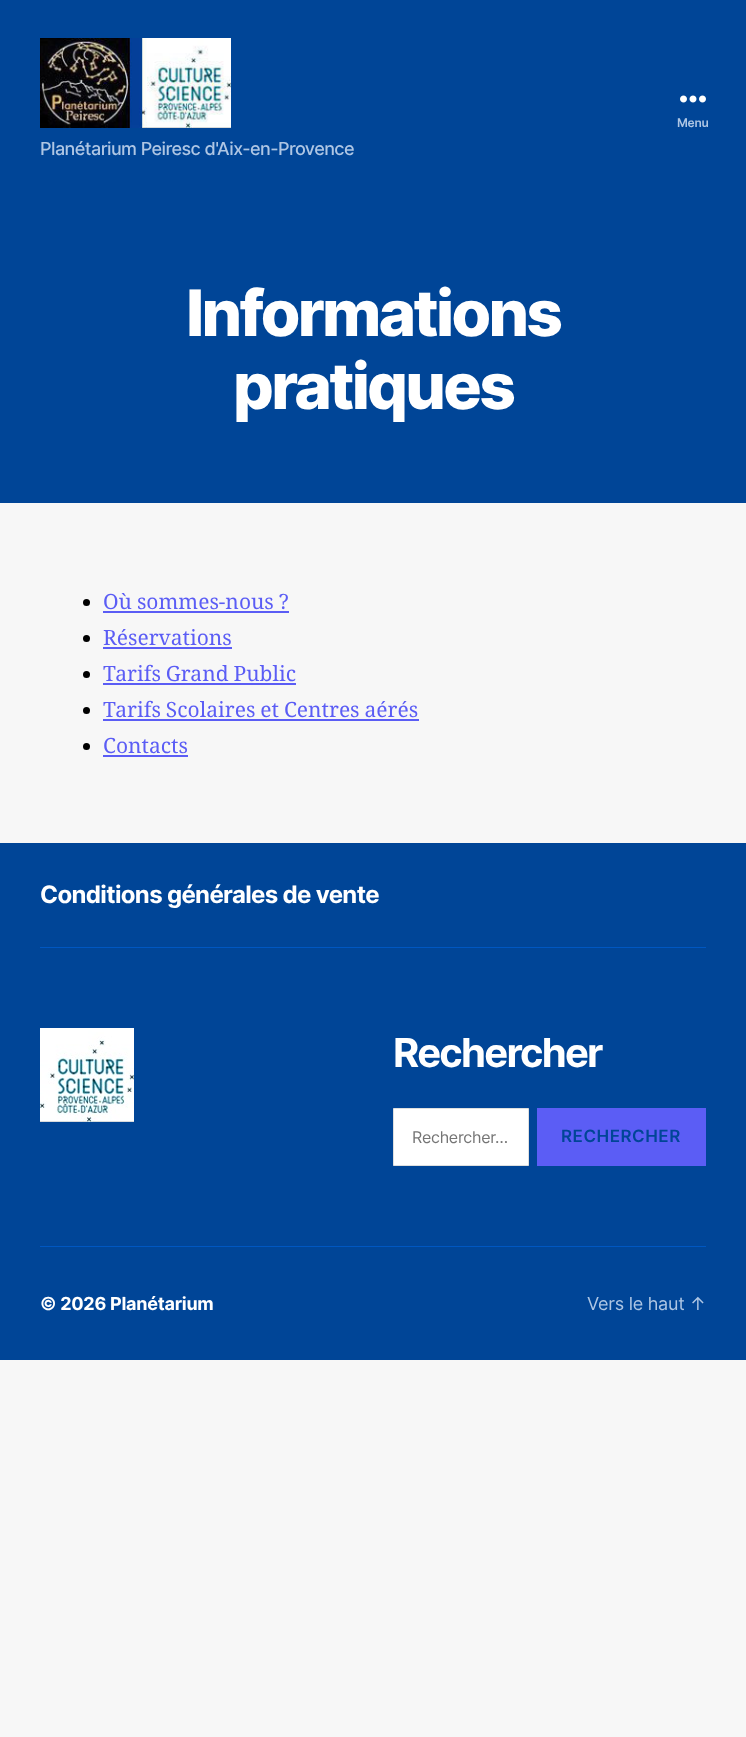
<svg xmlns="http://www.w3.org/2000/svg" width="746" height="1737">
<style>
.a{font:600 12px Inter;letter-spacing:-0.25px;fill:#aec6e4}
.b{font:500 18px Inter;letter-spacing:-0.55px;fill:#aec6e4}
.c{font:800 64px Inter;letter-spacing:-2.7px;fill:#fff}
.d{font:21px Noto Serif;fill:#5b5df5}
.e{font:bold 24px Inter;letter-spacing:-0.65px;fill:#fff}
.f{font:bold 40px Inter;letter-spacing:-1.75px;fill:#fff}
.g{font:16px Inter;letter-spacing:-0.25px;fill:#757575}
.h{font:600 17px Inter;letter-spacing:0.5px;fill:#004597}
.i{font:bold 18px Inter;letter-spacing:-0.25px;fill:#fff}
.j{font:18px Inter;letter-spacing:-0.25px;fill:#aec6e4}
</style>
<rect width="100%" height="100%" fill="#f7f7f7"/>
<path fill="#004597" d="M0 0h746v503H0z"/>
<image href="1.png" x="680" y="95" width="26" height="8"/>
<image href="2.png" x="40" y="38" width="191" height="90"/>
<circle fill="#000" cx="86.5" cy="602.5" r="3.5"/>
<path fill="#5b5df5" d="M103 611h186v2H103z"/>
<circle fill="#000" cx="86.5" cy="638.5" r="3.5"/>
<path fill="#5b5df5" d="M103 647h129v2H103z"/>
<circle fill="#000" cx="86.5" cy="674.5" r="3.5"/>
<path fill="#5b5df5" d="M103 683h193v2H103z"/>
<circle fill="#000" cx="86.5" cy="710.5" r="3.5"/>
<path fill="#5b5df5" d="M103 719h316v2H103z"/>
<circle fill="#000" cx="86.5" cy="746.5" r="3.5"/>
<path fill="#5b5df5" d="M103 755h85v2H103z"/>
<path fill="#004597" d="M0 843h746v517H0z"/>
<path fill="#0057c1" d="M40 947h666v1H40z"/>
<path fill="#0057c1" d="M40 1246h666v1H40z"/>
<image href="3.png" x="40" y="1028" width="94" height="94"/>
<path fill="#fff" stroke="#dedfdf" d="M393.5 1108.5h135v57H393.5z"/>
<path fill="#5b5df5" d="M537 1108h169v58H537z"/>
<text class="a" x="677" y="127">Menu</text>
<text class="b" x="40" y="155">Planétarium Peiresc d'Aix-en-Provence</text>
<text class="c" x="186" y="336">Informations</text>
<text class="c" x="233" y="409">pratiques</text>
<text class="d" x="103" y="609" word-spacing="-0.5">Où sommes-nous ?</text>
<text class="d" x="103" y="645">Réservations</text>
<text class="d" x="103" y="681" word-spacing="-0.5">Tarifs Grand Public</text>
<text class="d" x="103" y="717" word-spacing="-0.5">Tarifs Scolaires et Centres aérés</text>
<text class="d" x="103" y="753">Contacts</text>
<text class="e" x="40" y="903">Conditions générales de vente</text>
<text class="f" x="393" y="1067">Rechercher</text>
<text class="g" x="412" y="1143">Rechercher…</text>
<text class="h" x="561" y="1142">RECHERCHER</text>
<text class="i" x="40" y="1310">© 2026 Planétarium</text>
<text class="j" x="587" y="1310">Vers le haut ↑</text>
</svg>
